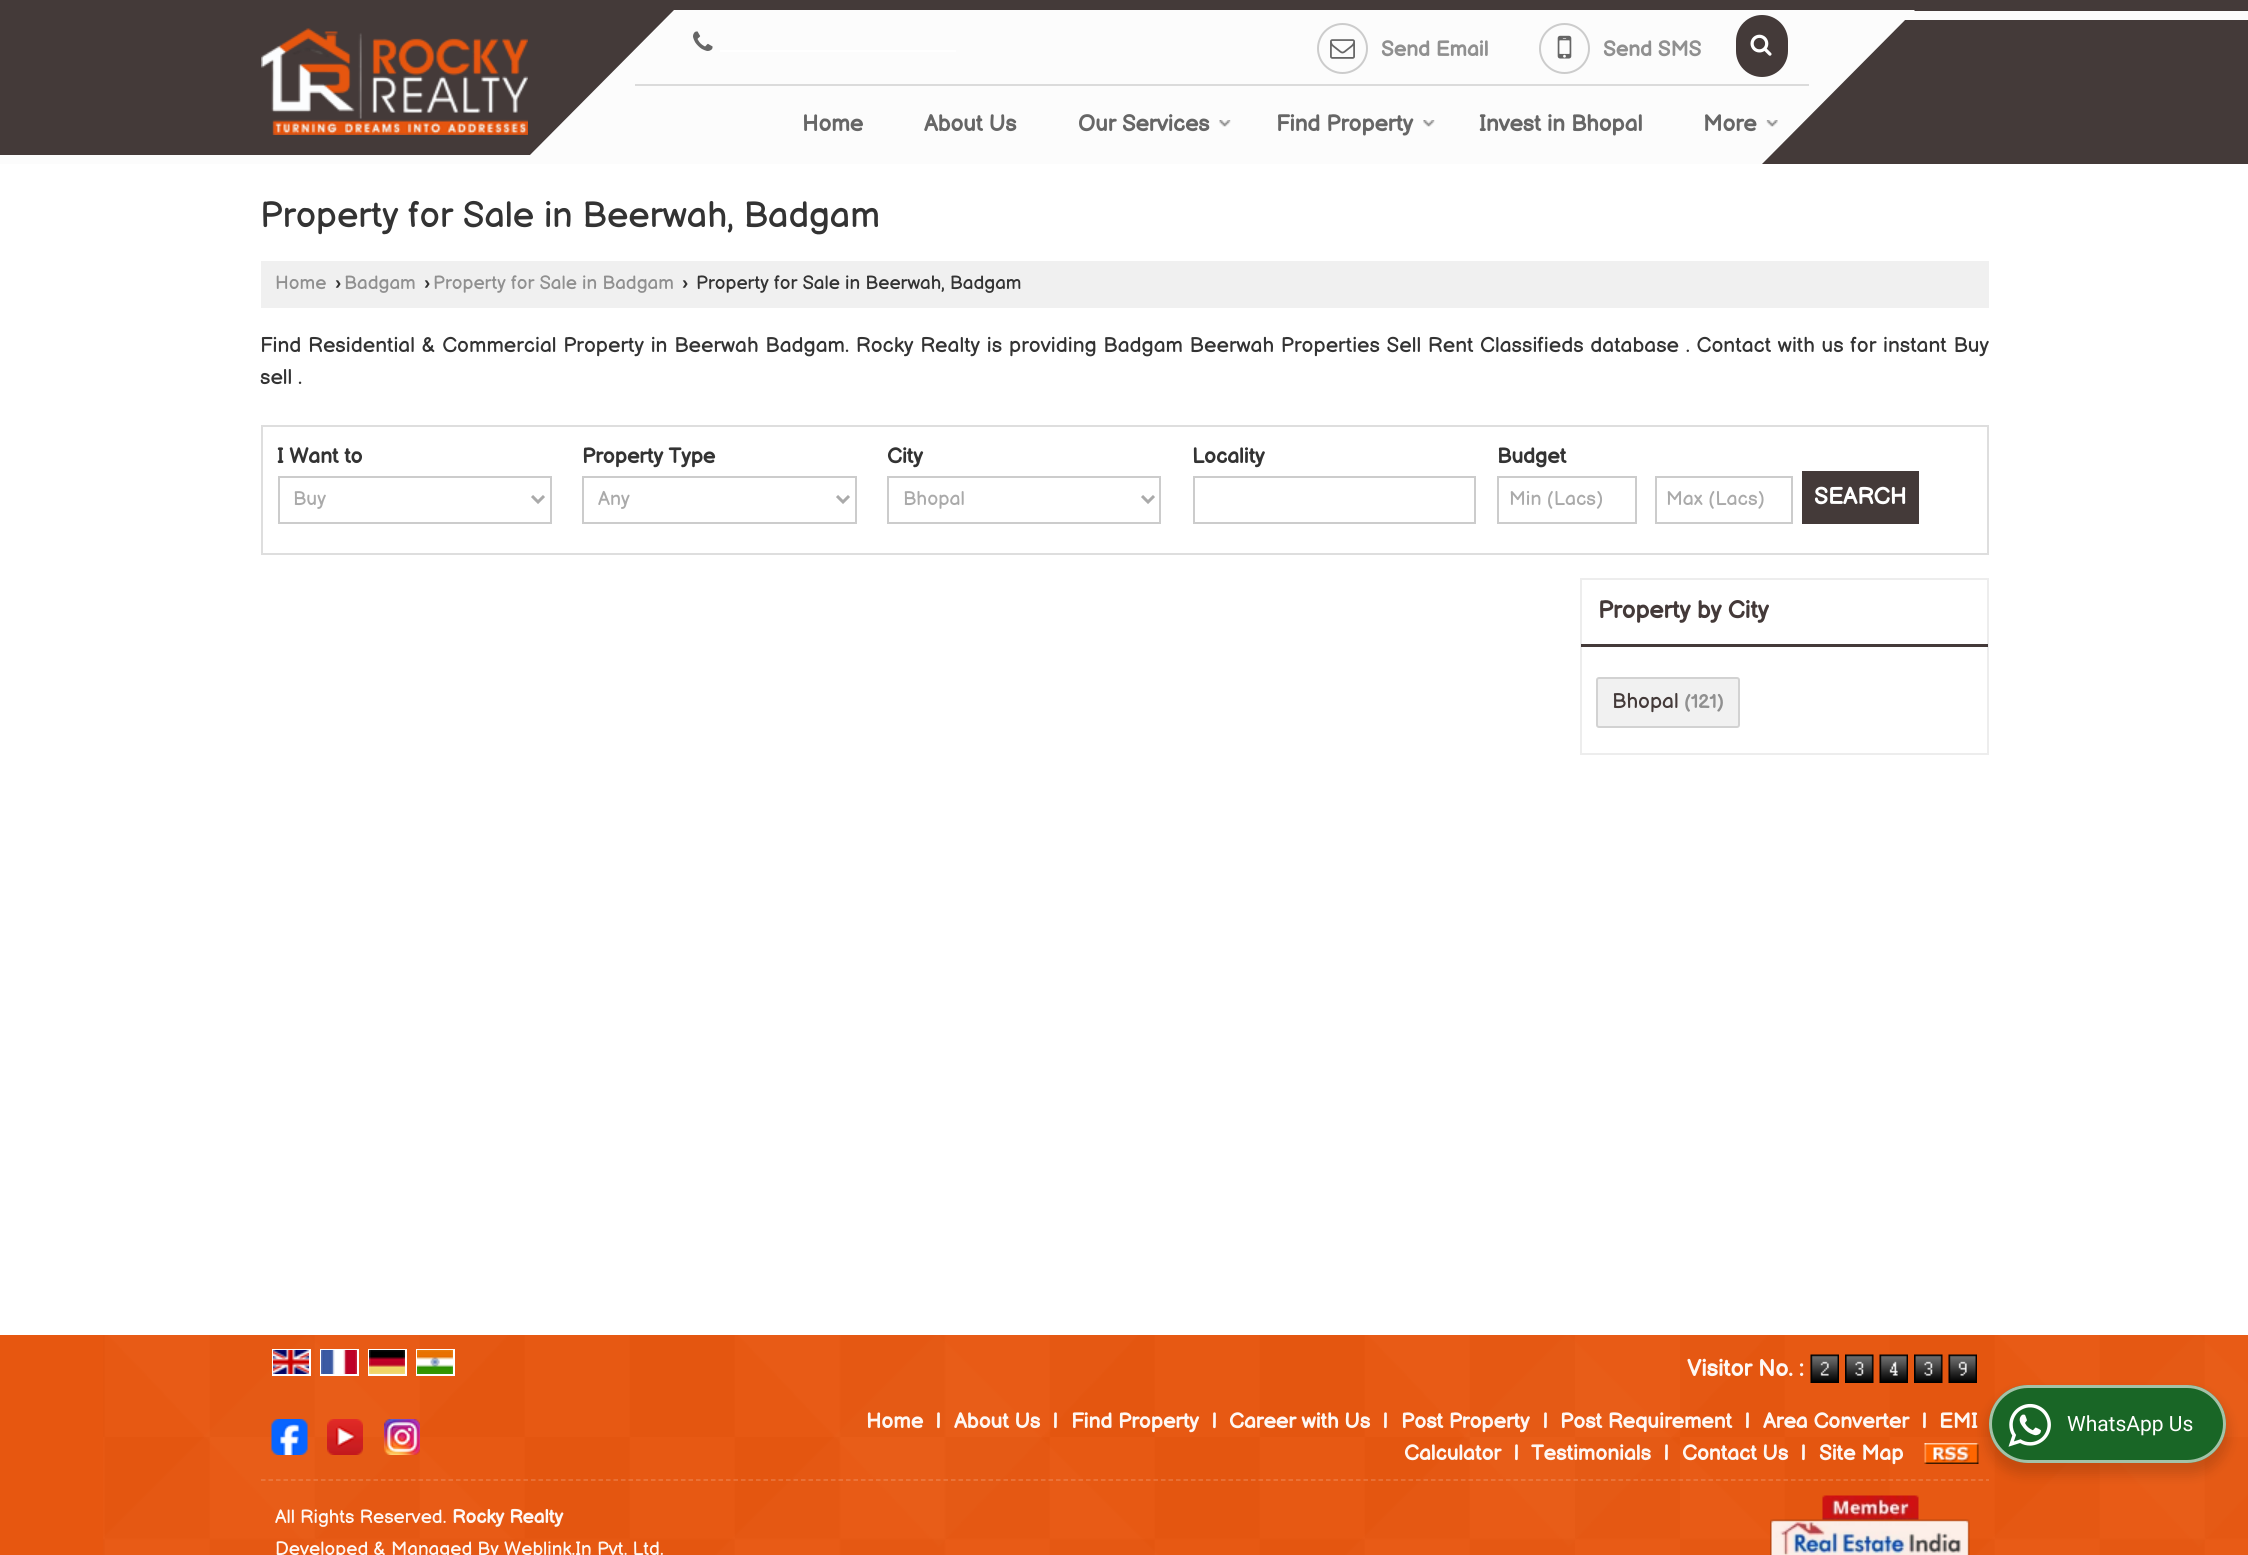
#include <cairo.h>
#include <math.h>
#include <stddef.h>

static cairo_t *c;
static void C(unsigned color){cairo_set_source_rgb(c, (color >> 16) / 255.0, (color >> 8 & 255) / 255.0, (color & 255) / 255.0);}
static void F(const char *family, double size, int italic, int bold){cairo_select_font_face(c, family, italic ? CAIRO_FONT_SLANT_ITALIC : CAIRO_FONT_SLANT_NORMAL,bold ? CAIRO_FONT_WEIGHT_BOLD : CAIRO_FONT_WEIGHT_NORMAL);cairo_set_font_size(c, size);}
static void T(double x, double y, const char *s){cairo_move_to(c, x, y);cairo_show_text(c, s);}
static void L(double x, double y, const char *s, double letter, double word){cairo_move_to(c, x, y);while (*s) {char ch[5] = {0};int n = 0;do ch[n++] = *s++; while ((*s & 0xC0) == 0x80);cairo_show_text(c, ch);cairo_rel_move_to(c, letter + word * (*ch == ' '), 0);}}
static void R(double x, double y, double w, double h){cairo_rectangle(c, x, y, w, h);cairo_fill(c);}
static void Q(double x, double y, double w, double h, double r){cairo_new_sub_path(c);cairo_arc(c, x + w - r, y + h - r, r, 0, M_PI / 2);cairo_arc(c, x + r, y + h - r, r, M_PI / 2, M_PI);cairo_arc(c, x + r, y + r, r, M_PI, 1.5 * M_PI);cairo_arc(c, x + w - r, y + r, r, 1.5 * M_PI, 2 * M_PI);cairo_close_path(c);}
static void S(double x, double y, double w, double h, double r, double blur, double alpha){cairo_push_group_with_content(c, CAIRO_CONTENT_ALPHA);cairo_set_operator(c, CAIRO_OPERATOR_SOURCE);for (int i = 15; i >= -15 && fmin(w, h) + blur * i / 3 > 0; i -= 2) {double e = blur * i / 6;cairo_set_source_rgba(c, 0, 0, 0, alpha * erfc((i - 1) / 8.5) / 2);Q(x - e, y - e, w + 2 * e, h + 2 * e, fmax(0, fmin(r + e + blur * .6, fmin(w, h) / 2 + e)));cairo_fill(c);}cairo_pattern_t *soft = cairo_pop_group(c);cairo_mask(c, soft);cairo_pattern_destroy(soft);}
static void I(const char *path, double x, double y, double w, double h){cairo_surface_t *image = cairo_image_surface_create_from_png(path);cairo_save(c);cairo_set_source_surface(c, image, x, y);cairo_rectangle(c, x, y, w, h);cairo_fill(c);cairo_restore(c);cairo_surface_destroy(image);}
int main(void) {
cairo_surface_t *surface = cairo_image_surface_create(CAIRO_FORMAT_RGB24, 2248, 1555);
c = cairo_create(surface);
cairo_font_options_t *options = cairo_font_options_create();
cairo_font_options_set_hint_metrics(options, CAIRO_HINT_METRICS_OFF);
cairo_font_options_set_hint_style(options, CAIRO_HINT_STYLE_NONE);
cairo_set_font_options(c, options);
cairo_set_miter_limit(c, 4);
C(0xffffff);
cairo_paint(c);
C(0x443a39);
R(0,0,2248,164);
I("1.png",261,28,267,107);
C(0xfcfcfc);
cairo_new_path(c);
cairo_move_to(c,674,10);
cairo_line_to(c,1915,10);
cairo_line_to(c,1762,164);
cairo_line_to(c,521,164);
cairo_close_path(c);
cairo_fill(c);
R(1905,11,343,9);
R(0,155,530,9);
C(0xdbdbdb);
R(635,84,1174,2);
I("2.png",693,31,20,20);
C(0xffffff);
R(720,50,236,2);
cairo_arc(c,1342.5,48.5,24.5,0,2 * M_PI);
C(0xcccccc);
cairo_stroke(c);
I("3.png",1330,39,25,20);
F("Balsamiq Sans",21,0,1);
C(0x909090);
T(1381,56,"Send Email");
cairo_new_path(c);
cairo_arc(c,1564.5,48.5,24.5,0,2 * M_PI);
C(0xcccccc);
cairo_stroke(c);
I("4.png",1557,35,15,24);
C(0x909090);
T(1603,56,"Send SMS");
C(0x443a39);
Q(1736,15,52,62,26);
cairo_fill(c);
I("5.png",1750,34,22,22);
F("Balsamiq Sans",22.5,0,1);
C(0x666666);
T(802,131,"Home");
T(924,131,"About Us");
T(1078,131,"Our Services");
I("6.png",1219,120,12,7);
T(1276,131,"Find Property");
I("7.png",1423,120,12,7);
T(1479,131,"Invest in Bhopal");
T(1703,131,"More");
I("8.png",1766,120,12,7);
F("Balsamiq Sans",36,0,0);
C(0x333333);
T(260,227,"Property for Sale in Beerwah, Badgam");
C(0xf0f0f0);
R(261,261,1728,47);
F("Balsamiq Sans",18.9,0,0);
C(0x909090);
T(275,289,"Home");
F("Liberation Sans",18.9,0,1);
C(0x333333);
T(335,289,"›");
F("Balsamiq Sans",18.9,0,0);
C(0x909090);
T(344,289,"Badgam");
F("Liberation Sans",18.9,0,1);
C(0x333333);
T(424,289,"›");
F("Balsamiq Sans",18.9,0,0);
C(0x909090);
T(433,289,"Property for Sale in Badgam");
F("Liberation Sans",18.9,0,1);
C(0x333333);
T(682,289,"›");
F("Balsamiq Sans",18.9,0,0);
T(696,289,"Property for Sale in Beerwah, Badgam");
F("Balsamiq Sans",21,0,0);
L(260,352,"Find Residential & Commercial Property in Beerwah Badgam. Rocky Realty is",0,1);
L(1009,352,"providing Badgam Beerwah Properties Sell Rent Classifieds database . Contact with us for instant Buy",0,1);
T(260,384,"sell .");
cairo_rectangle(c,262,426,1726,128);
C(0xdedede);
cairo_stroke(c);
F("Balsamiq Sans",21,0,1);
C(0x333333);
T(277,463,"I Want to");
cairo_rectangle(c,279,477,272,46);
C(0xcccccc);
cairo_stroke(c);
cairo_new_path(c);
cairo_move_to(c,532,496);
cairo_line_to(c,538,502);
cairo_line_to(c,544,496);
C(0xaaaaaa);
cairo_set_line_width(c,3);
cairo_stroke(c);
F("Balsamiq Sans",19.5,0,0);
T(293,505,"Buy");
F("Balsamiq Sans",21,0,1);
C(0x333333);
T(582,463,"Property Type");
cairo_rectangle(c,583,477,273,46);
C(0xcccccc);
cairo_set_line_width(c,2);
cairo_stroke(c);
cairo_new_path(c);
cairo_move_to(c,837,496);
cairo_line_to(c,843,502);
cairo_line_to(c,849,496);
C(0xaaaaaa);
cairo_set_line_width(c,3);
cairo_stroke(c);
F("Balsamiq Sans",19.5,0,0);
T(598,505,"Any");
F("Balsamiq Sans",21,0,1);
C(0x333333);
T(887,463,"City");
cairo_rectangle(c,888,477,272,46);
C(0xcccccc);
cairo_set_line_width(c,2);
cairo_stroke(c);
cairo_new_path(c);
cairo_move_to(c,1142,496);
cairo_line_to(c,1148,502);
cairo_line_to(c,1154,496);
C(0xaaaaaa);
cairo_set_line_width(c,3);
cairo_stroke(c);
F("Balsamiq Sans",19.5,0,0);
T(903,505,"Bhopal");
F("Balsamiq Sans",21,0,1);
C(0x333333);
T(1192,463,"Locality");
cairo_rectangle(c,1194,477,281,46);
C(0xcccccc);
cairo_set_line_width(c,2);
cairo_stroke(c);
C(0x333333);
T(1497,463,"Budget");
cairo_rectangle(c,1498,477,138,46);
C(0xcccccc);
cairo_stroke(c);
F("Balsamiq Sans",19.5,0,0);
C(0xaaaaaa);
T(1509,505,"Min (Lacs)");
cairo_rectangle(c,1656,477,136,46);
C(0xcccccc);
cairo_stroke(c);
C(0xaaaaaa);
T(1666,505,"Max (Lacs)");
C(0x443a39);
R(1802,471,117,53);
F("Balsamiq Sans",23,0,1);
C(0xffffff);
T(1814,504,"SEARCH");
cairo_rectangle(c,1581,579,407,175);
C(0xededed);
cairo_stroke(c);
C(0x443a39);
R(1581,644,407,3);
F("Balsamiq Sans",24,0,1);
T(1598,618,"Property by City");
C(0xf1f1f1);
Q(1596,677,144,51,3);
cairo_fill(c);
Q(1597,678,142,49,2);
cairo_set_source_rgba(c,0,0,0,0.13);
cairo_stroke(c);
F("Balsamiq Sans",21,0,0);
C(0x443a39);
T(1612,708,"Bhopal");
F("Balsamiq Sans",18.9,0,1);
C(0x909090);
T(1684,708,"(121)");
C(0xe75710);
R(0,1335,2248,220);
I("9.png",103,1335,2145,220);
cairo_rectangle(c,273,1350,37,25);
C(0xffffff);
cairo_stroke(c);
cairo_rectangle(c,321,1350,37,25);
cairo_stroke(c);
cairo_rectangle(c,369,1350,37,25);
cairo_stroke(c);
cairo_rectangle(c,417,1350,37,25);
cairo_stroke(c);
I("10.png",273,1350,36,24);
I("11.png",321,1350,36,24);
I("12.png",369,1350,36,24);
I("13.png",417,1350,36,24);
F("Balsamiq Sans",23,0,1);
C(0xfef7f3);
T(1687,1376,"Visitor No. :");
I("14.png",1810,1354,29,29);
I("15.png",1845,1354,29,29);
I("16.png",1879,1354,29,29);
I("17.png",1914,1354,29,29);
I("18.png",1948,1354,29,29);
I("19.png",271,1419,37,36);
I("20.png",327,1419,36,36);
I("21.png",384,1419,36,36);
F("Balsamiq Sans",21,0,1);
T(866,1428,"Home");
T(936,1428,"|");
T(954,1428,"About Us");
T(1053,1428,"|");
T(1071,1428,"Find Property");
T(1212,1428,"|");
T(1229,1428,"Career with Us");
T(1383,1428,"|");
T(1401,1428,"Post Property");
T(1543,1428,"|");
T(1560,1428,"Post Requirement");
T(1745,1428,"|");
T(1763,1428,"Area Converter");
T(1922,1428,"|");
T(1939,1428,"EMI");
T(1404,1460,"Calculator");
T(1514,1460,"|");
T(1531,1460,"Testimonials");
T(1664,1460,"|");
T(1682,1460,"Contact Us");
T(1801,1460,"|");
T(1819,1460,"Site Map");
I("22.png",1924,1443,55,21);
cairo_new_path(c);
cairo_move_to(c,261,1480);
cairo_line_to(c,1989,1480);
cairo_set_source_rgba(c,1,1,1,0.2);
cairo_set_line_width(c,1.5);
cairo_set_dash(c,(double[]){4.5,3},2,0);
cairo_stroke(c);
F("Balsamiq Sans",18.9,0,0);
C(0xfef7f3);
T(275,1523,"All Rights Reserved.");
F("Balsamiq Sans",18.9,0,1);
T(452,1523,"Rocky Realty");
F("Balsamiq Sans",18.9,0,0);
T(275,1555,"Developed & Managed By Weblink.In Pvt. Ltd.");
I("23.png",1770,1495,200,60);
C(0x000000);
S(1986,1391,243,84,42,6,.14);
C(0x196626);
Q(1989,1385,237,78,39);
cairo_fill(c);
Q(1990.5,1386.5,234,75,37.5);
cairo_set_source_rgba(c,1,1,1,0.6);
cairo_set_line_width(c,3);
cairo_set_dash(c,NULL,0,0);
cairo_stroke(c);
I("24.png",2008,1403,43,44);
F("Roboto",21,0,0);
C(0xffffff);
T(2067,1431,"WhatsApp Us");
cairo_surface_write_to_png(surface, "o.png");
cairo_font_options_destroy(options);
cairo_destroy(c);
cairo_surface_destroy(surface);
return 0;
}
